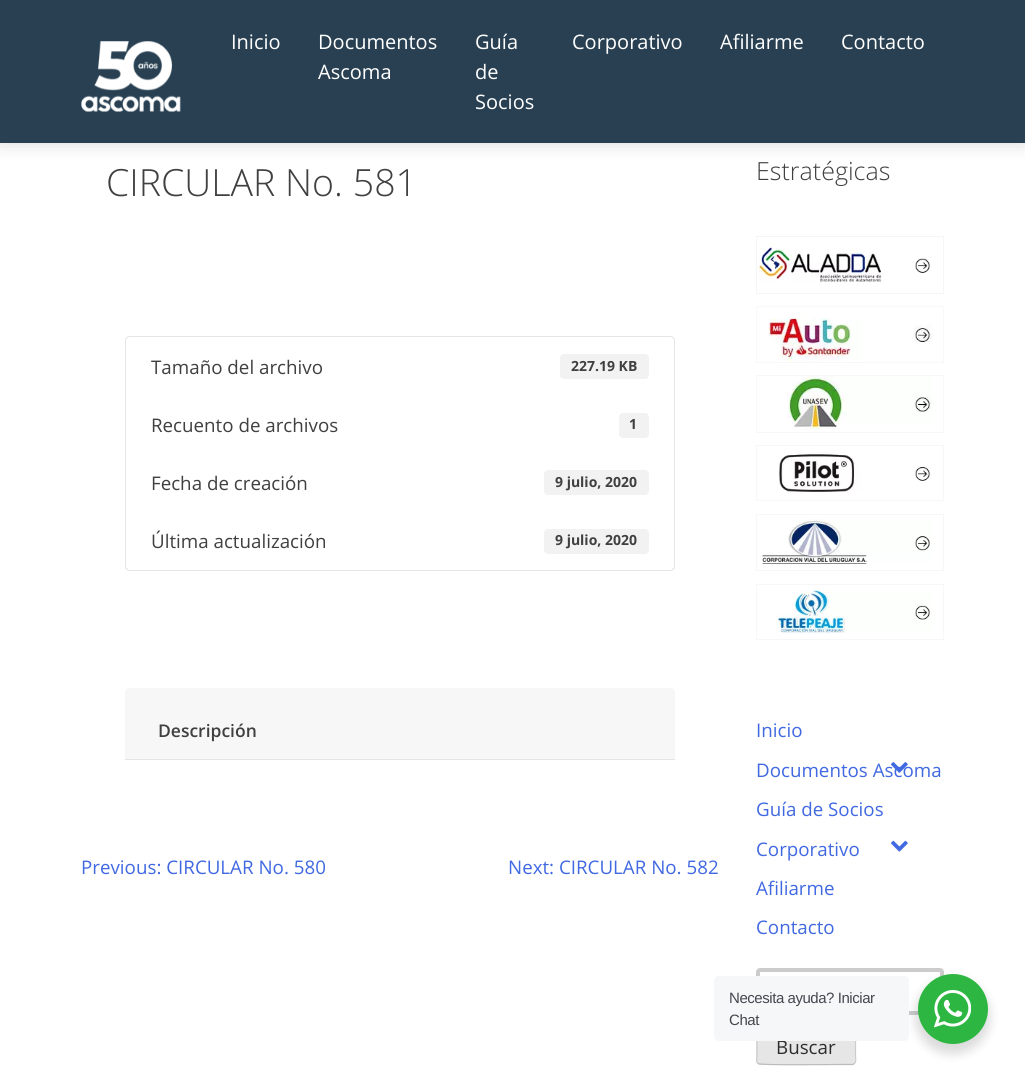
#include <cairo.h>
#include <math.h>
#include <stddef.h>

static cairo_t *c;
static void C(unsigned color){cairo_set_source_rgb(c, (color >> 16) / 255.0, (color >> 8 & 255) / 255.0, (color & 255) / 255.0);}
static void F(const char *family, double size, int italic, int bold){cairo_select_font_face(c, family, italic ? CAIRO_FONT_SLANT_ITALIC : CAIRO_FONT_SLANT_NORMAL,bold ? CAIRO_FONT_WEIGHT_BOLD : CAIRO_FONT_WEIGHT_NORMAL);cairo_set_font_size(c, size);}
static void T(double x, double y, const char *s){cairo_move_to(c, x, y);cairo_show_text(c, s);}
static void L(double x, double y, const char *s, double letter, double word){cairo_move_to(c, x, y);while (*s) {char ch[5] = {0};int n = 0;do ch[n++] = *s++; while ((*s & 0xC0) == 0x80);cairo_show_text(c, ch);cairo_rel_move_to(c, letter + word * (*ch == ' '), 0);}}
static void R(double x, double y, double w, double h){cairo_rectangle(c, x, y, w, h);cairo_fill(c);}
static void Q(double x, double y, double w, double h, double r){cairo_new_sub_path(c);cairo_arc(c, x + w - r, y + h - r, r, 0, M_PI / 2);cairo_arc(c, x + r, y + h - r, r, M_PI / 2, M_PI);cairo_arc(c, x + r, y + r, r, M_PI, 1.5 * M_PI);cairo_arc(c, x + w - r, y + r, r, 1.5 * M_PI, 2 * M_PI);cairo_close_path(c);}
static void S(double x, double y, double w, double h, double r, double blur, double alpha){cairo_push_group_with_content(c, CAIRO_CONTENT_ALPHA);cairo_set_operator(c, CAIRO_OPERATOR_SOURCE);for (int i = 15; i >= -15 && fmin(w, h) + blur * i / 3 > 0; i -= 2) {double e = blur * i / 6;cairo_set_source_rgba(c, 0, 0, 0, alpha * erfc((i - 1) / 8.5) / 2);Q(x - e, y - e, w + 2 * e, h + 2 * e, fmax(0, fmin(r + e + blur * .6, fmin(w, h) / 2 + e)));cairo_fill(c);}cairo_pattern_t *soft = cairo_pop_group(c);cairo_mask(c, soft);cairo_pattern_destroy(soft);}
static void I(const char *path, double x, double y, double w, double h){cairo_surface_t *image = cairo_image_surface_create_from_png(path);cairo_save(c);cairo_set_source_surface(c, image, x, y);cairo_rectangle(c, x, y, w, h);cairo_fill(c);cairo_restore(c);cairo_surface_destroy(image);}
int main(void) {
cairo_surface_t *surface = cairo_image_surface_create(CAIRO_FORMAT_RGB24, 1025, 1081);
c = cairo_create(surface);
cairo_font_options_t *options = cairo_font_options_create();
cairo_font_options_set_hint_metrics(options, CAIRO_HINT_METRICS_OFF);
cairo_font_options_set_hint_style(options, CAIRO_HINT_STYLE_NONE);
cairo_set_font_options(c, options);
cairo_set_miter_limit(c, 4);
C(0xffffff);
cairo_paint(c);
C(0x000000);
S(0,0,1025,143,0,10,.15);
C(0x284052);
R(0,0,1025,143);
I("1.png",81,41,100,71);
F("Open Sans",20,0,0);
C(0xffffff);
T(231,49,"Inicio");
T(318,49,"Documentos");
T(318,79,"Ascoma");
T(475,49,"Guía");
T(475,79,"de");
T(475,109,"Socios");
T(572,49,"Corporativo");
T(720,49,"Afiliarme");
T(841,49,"Contacto");
F("Open Sans Light",37.5,0,0);
C(0x404040);
T(106,196,"CIRCULAR No. 581");
cairo_new_path(c);
cairo_move_to(c,130,336.5);
cairo_line_to(c,670,336.5);
cairo_curve_to(c,672.5,336.5,674.5,338.5,674.5,341);
cairo_line_to(c,674.5,397.5);
cairo_line_to(c,125.5,397.5);
cairo_line_to(c,125.5,341);
cairo_curve_to(c,125.5,338.5,127.5,336.5,130,336.5);
cairo_close_path(c);
C(0xe5e5e5);
cairo_set_line_width(c,1);
cairo_stroke(c);
F("Open Sans",18.75,0,0);
C(0x404040);
T(151,374,"Tamaño del archivo");
C(0xf2f2f2);
Q(560,354,89,25,4);
cairo_fill(c);
F("Open Sans",14,0,1);
C(0x404040);
T(571,371,"227.19 KB");
C(0xffffff);
R(126,397,548,1);
C(0xe5e5e5);
R(674,396,1,118);
R(125,396,1,118);
F("Open Sans",18.75,0,0);
C(0x404040);
T(151,432,"Recuento de archivos");
C(0xf2f2f2);
Q(619,413,30,25,4);
cairo_fill(c);
F("Open Sans",14,0,1);
C(0x404040);
T(629,429,"1");
F("Open Sans",18.75,0,0);
T(151,490,"Fecha de creación");
C(0xf2f2f2);
Q(544,470,105,25,4);
cairo_fill(c);
F("Open Sans",14,0,1);
C(0x404040);
T(555,487,"9 julio, 2020");
C(0xe5e5e5);
cairo_set_fill_rule(c,CAIRO_FILL_RULE_EVEN_ODD);
cairo_new_path(c);
cairo_move_to(c,125,512);
cairo_line_to(c,675,512);
cairo_line_to(c,675,566);
cairo_curve_to(c,675,569,673,571,670,571);
cairo_line_to(c,130,571);
cairo_curve_to(c,127,571,125,569,125,566);
cairo_close_path(c);
cairo_move_to(c,126,512);
cairo_line_to(c,674,512);
cairo_line_to(c,674,566);
cairo_curve_to(c,674,568,672,570,670,570);
cairo_line_to(c,130,570);
cairo_curve_to(c,128,570,126,568,126,566);
cairo_close_path(c);
cairo_fill(c);
F("Open Sans",18.75,0,0);
C(0x404040);
T(151,548,"Última actualización");
C(0xf2f2f2);
Q(544,529,105,25,4);
cairo_fill(c);
F("Open Sans",14,0,1);
C(0x404040);
T(555,545,"9 julio, 2020");
C(0xf7f7f7);
cairo_new_path(c);
cairo_move_to(c,129,688);
cairo_line_to(c,671,688);
cairo_curve_to(c,673,688,675,690,675,692);
cairo_line_to(c,675,760);
cairo_line_to(c,125,760);
cairo_line_to(c,125,692);
cairo_curve_to(c,125,690,127,688,129,688);
cairo_close_path(c);
cairo_fill(c);
C(0xe5e5e5);
R(125,759,550,1);
F("Open Sans SemiBold",17.5,0,0);
C(0x404040);
T(158,737,"Descripción");
F("Open Sans",18.75,0,0);
C(0x4169e1);
T(81,874,"Previous: CIRCULAR No. 580");
T(508,874,"Next: CIRCULAR No. 582");
F("Open Sans Light",25,0,0);
C(0x404040);
T(756,180,"Estratégicas");
cairo_rectangle(c,756.5,236.5,187,57);
C(0xf5f5f5);
cairo_stroke(c);
I("2.png",757,243,175,39);
cairo_rectangle(c,756.5,306.5,187,56);
cairo_set_source_rgba(c,0,0,0,0.03);
cairo_stroke(c);
I("3.png",768,317,164,45);
cairo_rectangle(c,756.5,375.5,187,57);
cairo_stroke(c);
I("4.png",787,376,145,54);
cairo_rectangle(c,756.5,445.5,187,55);
C(0xf7f7f7);
cairo_stroke(c);
I("5.png",778,452,154,40);
cairo_rectangle(c,756.5,514.5,187,56);
cairo_stroke(c);
I("6.png",761,519,171,45);
cairo_rectangle(c,756.5,584.5,187,55);
cairo_stroke(c);
I("7.png",775,590,157,44);
F("Open Sans",18.75,0,0);
C(0x4169e1);
T(756,737,"Inicio");
T(756,777,"Documentos Ascoma");
I("8.png",891,762,17,11);
T(756,816,"Guía de Socios");
T(756,856,"Corporativo");
I("9.png",891,840,17,12);
T(756,895,"Afiliarme");
T(756,934,"Contacto");
Q(758,970,184,43,2);
C(0xcccccc);
cairo_set_line_width(c,4);
cairo_stroke(c);
C(0xe6e6e6);
Q(756,1025,100,40,4);
cairo_fill(c);
cairo_new_path(c);
cairo_move_to(c,854.5,1063.5);
cairo_line_to(c,852.5,1064.5);
cairo_line_to(c,837,1064.5);
cairo_curve_to(c,828.5,1064.5,760,1065.5,758,1063.5);
C(0xbbbbbb);
cairo_set_line_width(c,1.2);
cairo_stroke(c);
cairo_new_path(c);
cairo_move_to(c,758,1063.5);
cairo_curve_to(c,756,1061.5,757,1057.5,757,1056);
cairo_line_to(c,757,1045);
cairo_curve_to(c,757,1022,752.5,1025.5,775.5,1025.5);
cairo_line_to(c,837,1025.5);
cairo_curve_to(c,860,1025.5,855.5,1022,855.5,1045);
cairo_line_to(c,855.5,1056);
cairo_curve_to(c,855.5,1057.5,856.5,1061.5,854.5,1063.5);
C(0xcccccc);
cairo_stroke(c);
C(0x2e2e2e);
T(776,1054,"Buscar");
C(0x000000);
S(915,979,75,75,37.5,5,.14);
C(0xf5f7f9);
Q(714,976,195,65,5);
cairo_fill(c);
F("Liberation Sans",15,0,0);
C(0x43474e);
L(729,1003,"Necesita ayuda? Iniciar",-.45,0);
L(729,1025,"Chat",-.45,0);
C(0x2db742);
cairo_new_path(c);
cairo_arc(c,953,1009,35,0,2 * M_PI);
cairo_fill(c);
I("10.png",934,990,37,38);
cairo_surface_write_to_png(surface, "o.png");
cairo_font_options_destroy(options);
cairo_destroy(c);
cairo_surface_destroy(surface);
return 0;
}
